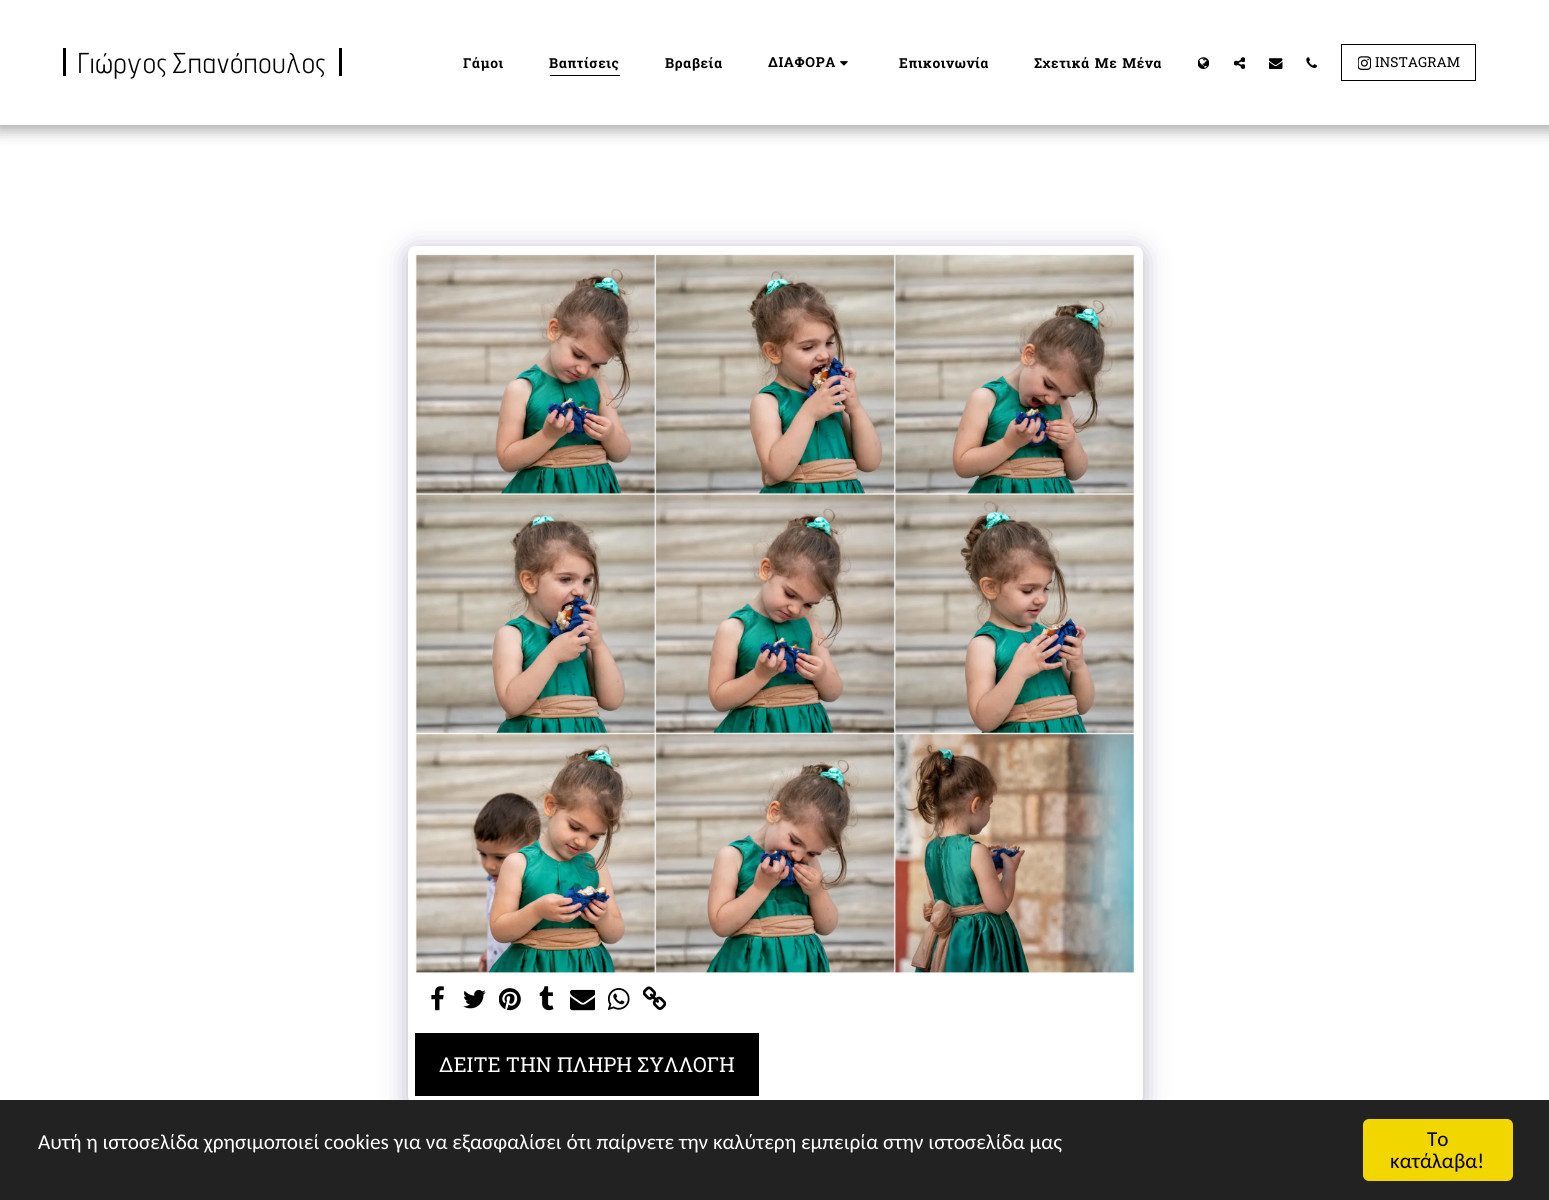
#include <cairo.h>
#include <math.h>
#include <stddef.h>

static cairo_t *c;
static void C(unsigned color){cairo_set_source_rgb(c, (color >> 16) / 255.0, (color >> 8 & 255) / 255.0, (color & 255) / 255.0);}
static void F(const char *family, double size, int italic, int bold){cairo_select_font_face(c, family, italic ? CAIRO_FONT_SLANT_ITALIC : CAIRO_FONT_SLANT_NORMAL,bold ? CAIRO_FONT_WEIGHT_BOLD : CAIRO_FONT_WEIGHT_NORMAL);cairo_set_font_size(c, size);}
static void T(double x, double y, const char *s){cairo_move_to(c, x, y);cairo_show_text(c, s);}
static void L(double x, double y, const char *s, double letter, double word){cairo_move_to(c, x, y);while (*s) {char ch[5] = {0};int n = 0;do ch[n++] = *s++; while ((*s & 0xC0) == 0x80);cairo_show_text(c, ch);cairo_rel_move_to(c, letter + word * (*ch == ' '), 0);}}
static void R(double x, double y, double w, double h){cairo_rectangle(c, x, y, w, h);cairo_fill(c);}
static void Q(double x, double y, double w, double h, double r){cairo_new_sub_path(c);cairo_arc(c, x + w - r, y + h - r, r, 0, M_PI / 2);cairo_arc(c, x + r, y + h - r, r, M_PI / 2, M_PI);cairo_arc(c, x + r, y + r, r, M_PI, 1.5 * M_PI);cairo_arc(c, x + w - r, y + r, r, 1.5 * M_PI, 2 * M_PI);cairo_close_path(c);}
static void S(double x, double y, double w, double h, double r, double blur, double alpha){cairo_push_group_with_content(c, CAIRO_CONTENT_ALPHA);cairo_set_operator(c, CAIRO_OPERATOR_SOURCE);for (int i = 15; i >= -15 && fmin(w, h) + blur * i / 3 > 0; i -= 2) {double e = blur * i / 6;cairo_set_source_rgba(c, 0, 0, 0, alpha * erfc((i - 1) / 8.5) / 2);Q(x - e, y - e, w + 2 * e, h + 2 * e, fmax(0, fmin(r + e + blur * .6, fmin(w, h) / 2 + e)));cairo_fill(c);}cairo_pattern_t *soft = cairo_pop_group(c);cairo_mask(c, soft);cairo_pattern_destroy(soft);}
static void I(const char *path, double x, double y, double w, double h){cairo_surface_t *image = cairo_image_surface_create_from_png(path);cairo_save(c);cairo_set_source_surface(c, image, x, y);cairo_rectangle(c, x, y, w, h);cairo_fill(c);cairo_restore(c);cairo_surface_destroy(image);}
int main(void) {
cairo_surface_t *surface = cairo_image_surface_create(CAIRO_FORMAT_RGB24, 1549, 1200);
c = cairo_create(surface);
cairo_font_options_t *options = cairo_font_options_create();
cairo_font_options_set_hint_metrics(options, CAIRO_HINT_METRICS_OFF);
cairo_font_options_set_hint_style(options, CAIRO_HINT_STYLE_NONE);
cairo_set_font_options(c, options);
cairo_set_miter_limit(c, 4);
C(0xffffff);
cairo_paint(c);
C(0x000000);
S(-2,0,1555,130,0,7.5,.35);
C(0xffffff);
R(0,0,1549,125);
C(0x000000);
R(339,48,3,28);
R(63,48,3,28);
F("Advent Pro",28.75,0,0);
L(78,73,"Γιώργος",1.25,0);
L(172,73,"Σπανόπουλος",1.25,0);
F("Roboto Slab",13.75,0,1);
L(463,68,"Γάμοι",.6,0);
L(549,68,"Βαπτίσεις",.6,0);
R(550,75,70,1);
L(665,68,"Βραβεία",.6,0);
L(768,67,"ΔΙΑΦΟΡΑ",.6,0);
I("1.png",840,61,8,5);
L(899,68,"Επικοινωνία",.6,0);
L(1034,68,"Σχετικά Με Μένα",.6,1);
I("2.png",1198,57,11,12);
I("3.png",1234,57,11,12);
I("4.png",1269,58,14,11);
I("5.png",1306,57,11,11);
cairo_rectangle(c,1341.5,44.5,134,36);
cairo_set_line_width(c,1);
cairo_stroke(c);
I("6.png",1358,56,13,14);
F("Roboto Slab",13.75,0,0);
T(1375,67,"INSTAGRAM");
C(0x4d3f7a);
S(408,250,735,858,8,12.5,.4);
C(0xffffff);
Q(408,246,735,858,8);
cairo_fill(c);
I("7.png",415,254,720,720);
I("8.png",431,986,13,25);
I("9.png",463,989,23,20);
I("10.png",499,988,22,23);
I("11.png",539,986,15,25);
I("12.png",570,989,25,22);
I("13.png",608,988,22,22);
I("14.png",643,986,23,24);
C(0x000000);
R(415,1033,344,63);
F("Roboto Slab",20.6,0,0);
C(0xffffff);
T(439,1072,"ΔΕΙΤΕ ΤΗΝ ΠΛΗΡΗ ΣΥΛΛΟΓΗ");
C(0x222222);
R(0,1100,1549,100);
F("Carlito",21.25,0,0);
C(0xffffff);
T(38,1149,"Αυτή η ιστοσελίδα χρησιμοποιεί cookies για να εξασφαλίσει ότι παίρνετε την καλύτερη εμπειρία στην ιστοσελίδα μας");
C(0xf1d600);
Q(1363,1119,150,62,6);
cairo_fill(c);
C(0x000000);
T(1427,1146,"Το");
T(1390,1168,"κατάλαβα!");
cairo_surface_write_to_png(surface, "o.png");
cairo_font_options_destroy(options);
cairo_destroy(c);
cairo_surface_destroy(surface);
return 0;
}
